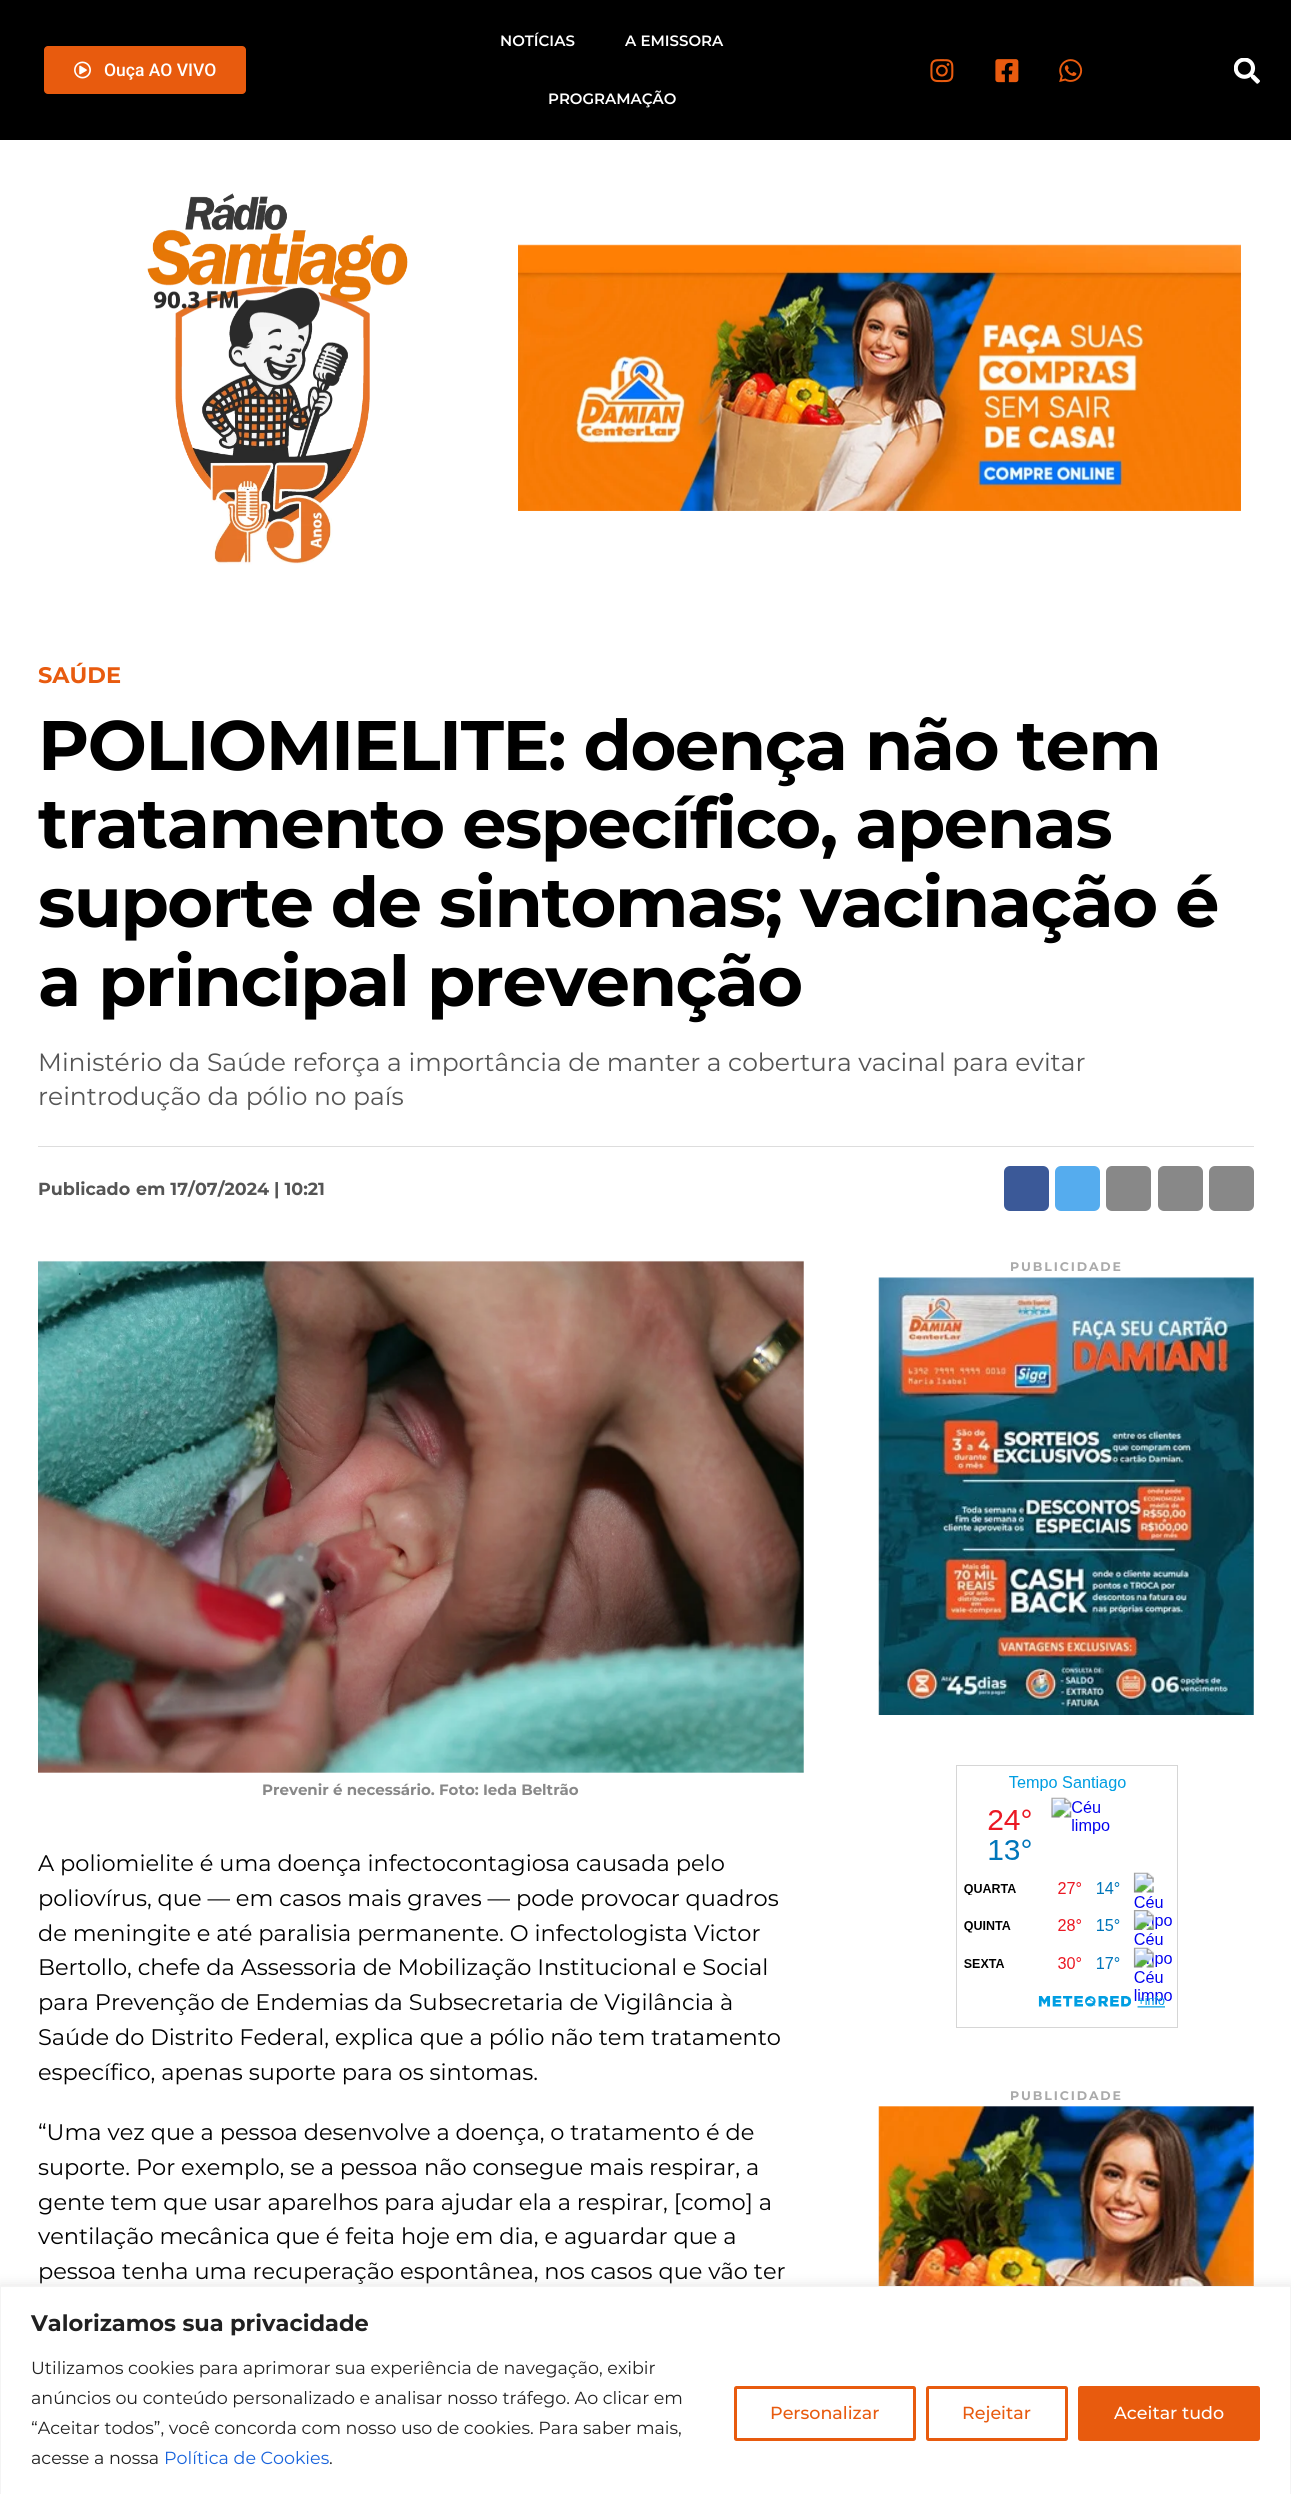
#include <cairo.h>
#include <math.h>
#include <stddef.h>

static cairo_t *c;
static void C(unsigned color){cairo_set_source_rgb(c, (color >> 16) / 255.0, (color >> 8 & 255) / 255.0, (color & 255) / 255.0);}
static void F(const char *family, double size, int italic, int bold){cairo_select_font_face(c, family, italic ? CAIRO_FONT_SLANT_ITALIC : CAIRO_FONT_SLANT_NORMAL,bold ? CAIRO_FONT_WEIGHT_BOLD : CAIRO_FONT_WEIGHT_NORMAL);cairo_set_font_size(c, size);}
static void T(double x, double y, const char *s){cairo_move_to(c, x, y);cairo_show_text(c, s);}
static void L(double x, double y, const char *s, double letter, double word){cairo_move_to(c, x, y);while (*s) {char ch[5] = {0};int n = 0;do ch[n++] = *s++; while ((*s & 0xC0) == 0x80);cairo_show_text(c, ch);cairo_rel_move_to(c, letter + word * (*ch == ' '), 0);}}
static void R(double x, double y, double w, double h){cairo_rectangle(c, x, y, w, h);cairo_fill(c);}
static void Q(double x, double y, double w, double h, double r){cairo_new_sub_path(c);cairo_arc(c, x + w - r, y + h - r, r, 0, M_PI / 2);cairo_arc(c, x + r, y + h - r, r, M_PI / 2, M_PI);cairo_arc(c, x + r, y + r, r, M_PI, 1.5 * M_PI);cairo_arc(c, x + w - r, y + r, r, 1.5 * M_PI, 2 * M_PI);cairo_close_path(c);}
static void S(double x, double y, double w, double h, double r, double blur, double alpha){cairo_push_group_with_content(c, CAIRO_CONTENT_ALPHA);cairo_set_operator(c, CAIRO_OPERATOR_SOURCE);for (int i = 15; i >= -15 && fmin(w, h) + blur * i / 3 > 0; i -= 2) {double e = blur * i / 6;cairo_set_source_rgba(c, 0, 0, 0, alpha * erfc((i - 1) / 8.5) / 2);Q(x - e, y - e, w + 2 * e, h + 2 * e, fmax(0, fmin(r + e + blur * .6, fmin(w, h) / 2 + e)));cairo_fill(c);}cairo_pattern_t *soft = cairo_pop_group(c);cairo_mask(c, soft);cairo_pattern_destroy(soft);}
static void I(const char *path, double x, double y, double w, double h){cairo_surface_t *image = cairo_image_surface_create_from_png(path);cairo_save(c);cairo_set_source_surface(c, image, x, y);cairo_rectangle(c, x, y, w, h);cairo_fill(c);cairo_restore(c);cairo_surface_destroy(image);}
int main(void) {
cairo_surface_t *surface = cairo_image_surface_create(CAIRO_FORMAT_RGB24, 1291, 2494);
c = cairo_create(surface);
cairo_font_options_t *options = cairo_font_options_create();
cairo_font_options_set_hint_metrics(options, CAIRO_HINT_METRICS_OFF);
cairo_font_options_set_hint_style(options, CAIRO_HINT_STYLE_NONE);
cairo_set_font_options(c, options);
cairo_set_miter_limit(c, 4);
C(0xffffff);
cairo_paint(c);
C(0x000000);
R(0,0,1291,140);
C(0xe85b0e);
Q(44,46,202,48,4);
cairo_fill(c);
I("1.png",74,61,17,18);
F("Roboto Medium",17.5,0,0);
C(0xffffff);
T(104,76,"Ouça AO VIVO");
F("Montserrat SemiBold",15,0,0);
T(500,46,"NOTÍCIAS");
T(625,46,"A EMISSORA");
T(548,104,"PROGRAMAÇÃO");
I("2.png",930,59,24,24);
I("3.png",995,59,24,24);
I("4.png",1059,59,24,23);
I("5.png",1234,58,26,26);
I("6.png",147,193,261,372);
I("7.png",518,244,723,267);
F("Montserrat",22.5,0,1);
C(0xe85b0f);
T(38,683,"SAÚDE");
F("Montserrat",70,0,1);
C(0x000000);
L(38,770,"POLIOMIELITE: doença não tem",-1.4,0);
L(38,848,"tratamento específico, apenas",-1.4,0);
L(38,927,"suporte de sintomas; vacinação é",-1.4,0);
L(38,1006,"a principal prevenção",-1.4,0);
F("Montserrat",25,0,0);
C(0x555555);
T(38,1071,"Ministério da Saúde reforça a importância de manter a cobertura vacinal para evitar");
T(38,1105,"reintrodução da pólio no país");
C(0xdddddd);
R(38,1146,1216,1);
F("Montserrat",17.5,0,1);
C(0x555555);
T(38,1195,"Publicado");
T(136,1195,"em 17/07/2024 | 10:21");
C(0x3b5998);
Q(1004,1166,45,45,6);
cairo_fill(c);
C(0x55acee);
Q(1055,1166,45,45,6);
cairo_fill(c);
C(0x888888);
Q(1106,1166,45,45,6);
cairo_fill(c);
Q(1158,1166,45,45,6);
cairo_fill(c);
Q(1209,1166,45,45,6);
cairo_fill(c);
I("8.png",38,1260,766,513);
F("Montserrat",15,0,1);
T(262,1795,"Prevenir é necessário. Foto: Ieda Beltrão");
F("Montserrat",22.5,0,0);
C(0x000000);
T(38,1871,"A poliomielite é uma doença infectocontagiosa causada pelo");
T(38,1906,"poliovírus, que — em casos mais graves — pode provocar quadros");
T(38,1941,"de meningite e até paralisia permanente. O infectologista Victor");
T(38,1975,"Bertollo, chefe da Assessoria de Mobilização Institucional e Social");
T(38,2010,"para Prevenção de Endemias da Subsecretaria de Vigilância à");
T(38,2045,"Saúde do Distrito Federal, explica que a pólio não tem tratamento");
T(38,2080,"específico, apenas suporte para os sintomas.");
T(38,2140,"“Uma vez que a pessoa desenvolve a doença, o tratamento é de");
T(38,2175,"suporte. Por exemplo, se a pessoa não consegue mais respirar, a");
T(38,2210,"gente tem que usar aparelhos para ajudar ela a respirar, [como] a");
T(38,2244,"ventilação mecânica que é feita hoje em dia, e aguardar que a");
T(38,2279,"pessoa tenha uma recuperação espontânea, nos casos que vão ter");
F("Montserrat",12.5,0,1);
C(0xaaaaaa);
L(1010,1271,"PUBLICIDADE",1.9,0);
I("9.png",878,1277,376,438);
cairo_rectangle(c,956.5,1765.5,221,262);
C(0xd6d6d6);
cairo_set_line_width(c,1);
cairo_stroke(c);
I("10.png",964,1776,208,232);
C(0xaaaaaa);
L(1010,2100,"PUBLICIDADE",1.9,0);
I("11.png",878,2106,376,180);
C(0xacabab);
S(0,2285,1291,209,0,6,.3);
C(0xffffff);
cairo_rectangle(c,.5,2286.5,1290,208);
cairo_fill_preserve(c);
C(0xf4f4f4);
cairo_stroke(c);
F("Montserrat",22.5,0,1);
C(0x212121);
T(31,2331,"Valorizamos sua privacidade");
F("Montserrat",17.5,0,0);
T(31,2374,"Utilizamos cookies para aprimorar sua experiência de navegação, exibir");
T(31,2404,"anúncios ou conteúdo personalizado e analisar nosso tráfego. Ao clicar em");
T(31,2434,"“Aceitar todos”, você concorda com nosso uso de cookies. Para saber mais,");
T(31,2464,"acesse a nossa");
C(0x1863dc);
T(164,2464,"Política de Cookies");
C(0x212121);
T(329,2464,".");
Q(735.5,2387.5,179,52,1);
C(0xe85b0e);
cairo_set_line_width(c,3);
cairo_stroke(c);
F("Montserrat Medium",17.5,0,0);
C(0xe85b0f);
T(770,2419,"Personalizar");
Q(927.5,2387.5,139,52,1);
C(0xe85b0e);
cairo_stroke(c);
C(0xe85b0f);
T(962,2419,"Rejeitar");
C(0xe85b0e);
Q(1079.5,2387.5,179,52,1);
cairo_fill_preserve(c);
cairo_stroke(c);
C(0xffffff);
T(1114,2419,"Aceitar tudo");
cairo_surface_write_to_png(surface, "o.png");
cairo_font_options_destroy(options);
cairo_destroy(c);
cairo_surface_destroy(surface);
return 0;
}
